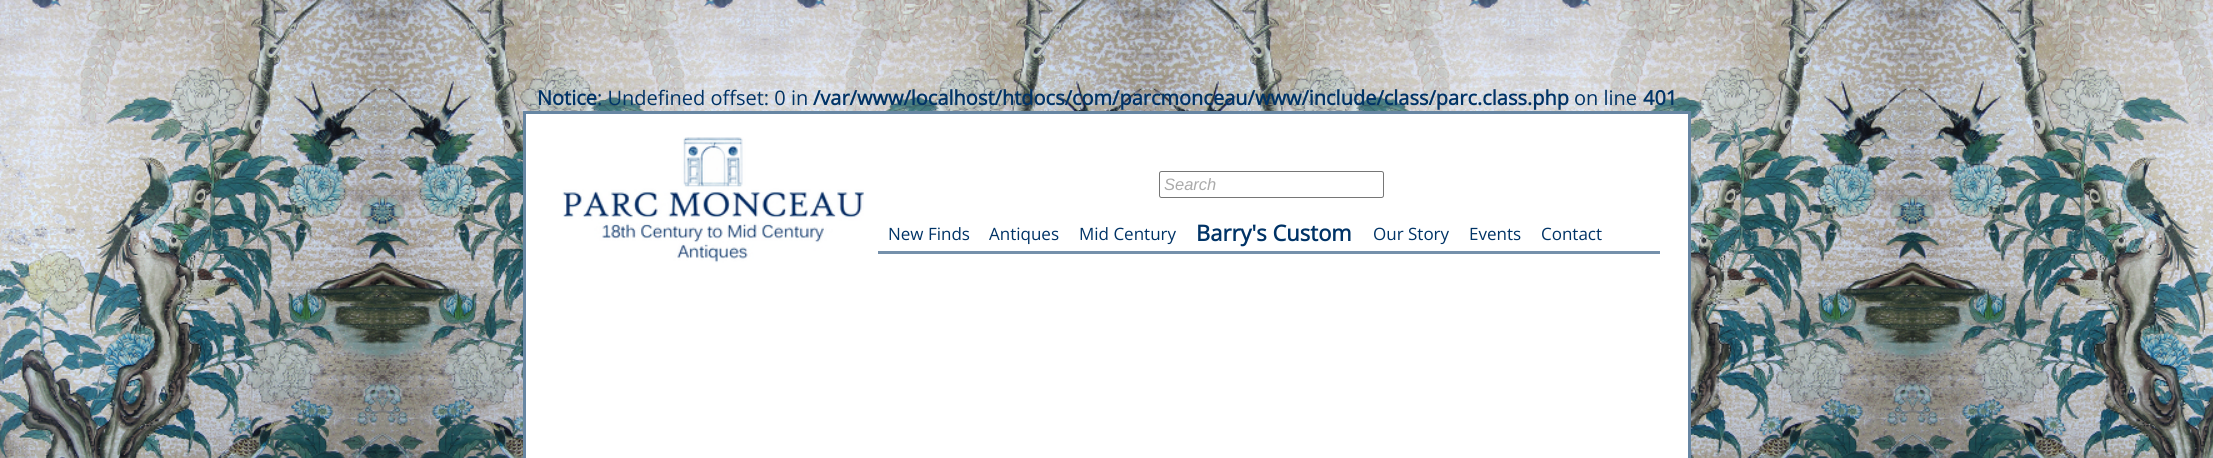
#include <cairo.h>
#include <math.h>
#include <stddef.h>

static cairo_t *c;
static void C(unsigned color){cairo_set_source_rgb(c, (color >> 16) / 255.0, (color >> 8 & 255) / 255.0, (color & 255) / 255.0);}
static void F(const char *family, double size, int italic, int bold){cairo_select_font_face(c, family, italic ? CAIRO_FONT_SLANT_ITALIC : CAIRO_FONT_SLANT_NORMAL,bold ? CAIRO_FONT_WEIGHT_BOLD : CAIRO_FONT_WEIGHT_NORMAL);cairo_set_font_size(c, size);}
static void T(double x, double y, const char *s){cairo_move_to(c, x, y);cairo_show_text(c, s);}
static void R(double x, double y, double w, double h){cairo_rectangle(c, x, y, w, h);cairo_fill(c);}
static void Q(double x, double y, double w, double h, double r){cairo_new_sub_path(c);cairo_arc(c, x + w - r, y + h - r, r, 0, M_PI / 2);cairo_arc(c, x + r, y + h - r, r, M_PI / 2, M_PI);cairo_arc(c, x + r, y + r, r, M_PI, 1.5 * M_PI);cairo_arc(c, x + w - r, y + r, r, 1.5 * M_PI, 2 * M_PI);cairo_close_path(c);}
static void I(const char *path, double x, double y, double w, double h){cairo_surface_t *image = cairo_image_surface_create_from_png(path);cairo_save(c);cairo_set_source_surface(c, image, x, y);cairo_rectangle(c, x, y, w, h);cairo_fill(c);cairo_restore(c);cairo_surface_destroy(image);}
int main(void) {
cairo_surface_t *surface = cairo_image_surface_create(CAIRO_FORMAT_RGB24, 2213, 458);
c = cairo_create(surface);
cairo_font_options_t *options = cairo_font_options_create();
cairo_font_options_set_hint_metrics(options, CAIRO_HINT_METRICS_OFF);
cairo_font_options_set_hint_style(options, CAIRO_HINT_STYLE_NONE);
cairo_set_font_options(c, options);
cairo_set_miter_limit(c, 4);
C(0xffffff);
cairo_paint(c);
I("1.png",0,0,2213,458);
F("Open Sans",20,0,1);
C(0x003366);
T(537,105,"Notice");
F("Open Sans",20,0,0);
T(597,105,": Undefined offset: 0 in");
F("Open Sans",20,0,1);
T(813,105,"/var/www/localhost/htdocs/com/parcmonceau/www/include/class/parc.class.php");
F("Open Sans",20,0,0);
T(1574,105,"on line");
F("Open Sans",20,0,1);
T(1643,105,"401");
C(0xffffff);
cairo_rectangle(c,524.5,112.5,1165,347);
cairo_fill_preserve(c);
C(0x6786a3);
cairo_set_line_width(c,3);
cairo_stroke(c);
I("2.png",562,137,302,126);
Q(1159.5,171.5,224,26,2);
C(0x767676);
cairo_set_line_width(c,1);
cairo_stroke(c);
F("Liberation Sans",16.5,1,0);
C(0xaaaaaa);
T(1164,190,"Search");
C(0x7590ab);
R(878,251,782,3);
F("Open Sans",17,0,0);
C(0x003366);
T(888,240,"New Finds");
T(989,240,"Antiques");
T(1079,240,"Mid Century");
F("Open Sans",22,0,1);
T(1196,241,"Barry's Custom");
F("Open Sans",17,0,0);
T(1373,240,"Our Story");
T(1469,240,"Events");
T(1541,240,"Contact");
cairo_surface_write_to_png(surface, "o.png");
cairo_font_options_destroy(options);
cairo_destroy(c);
cairo_surface_destroy(surface);
return 0;
}
